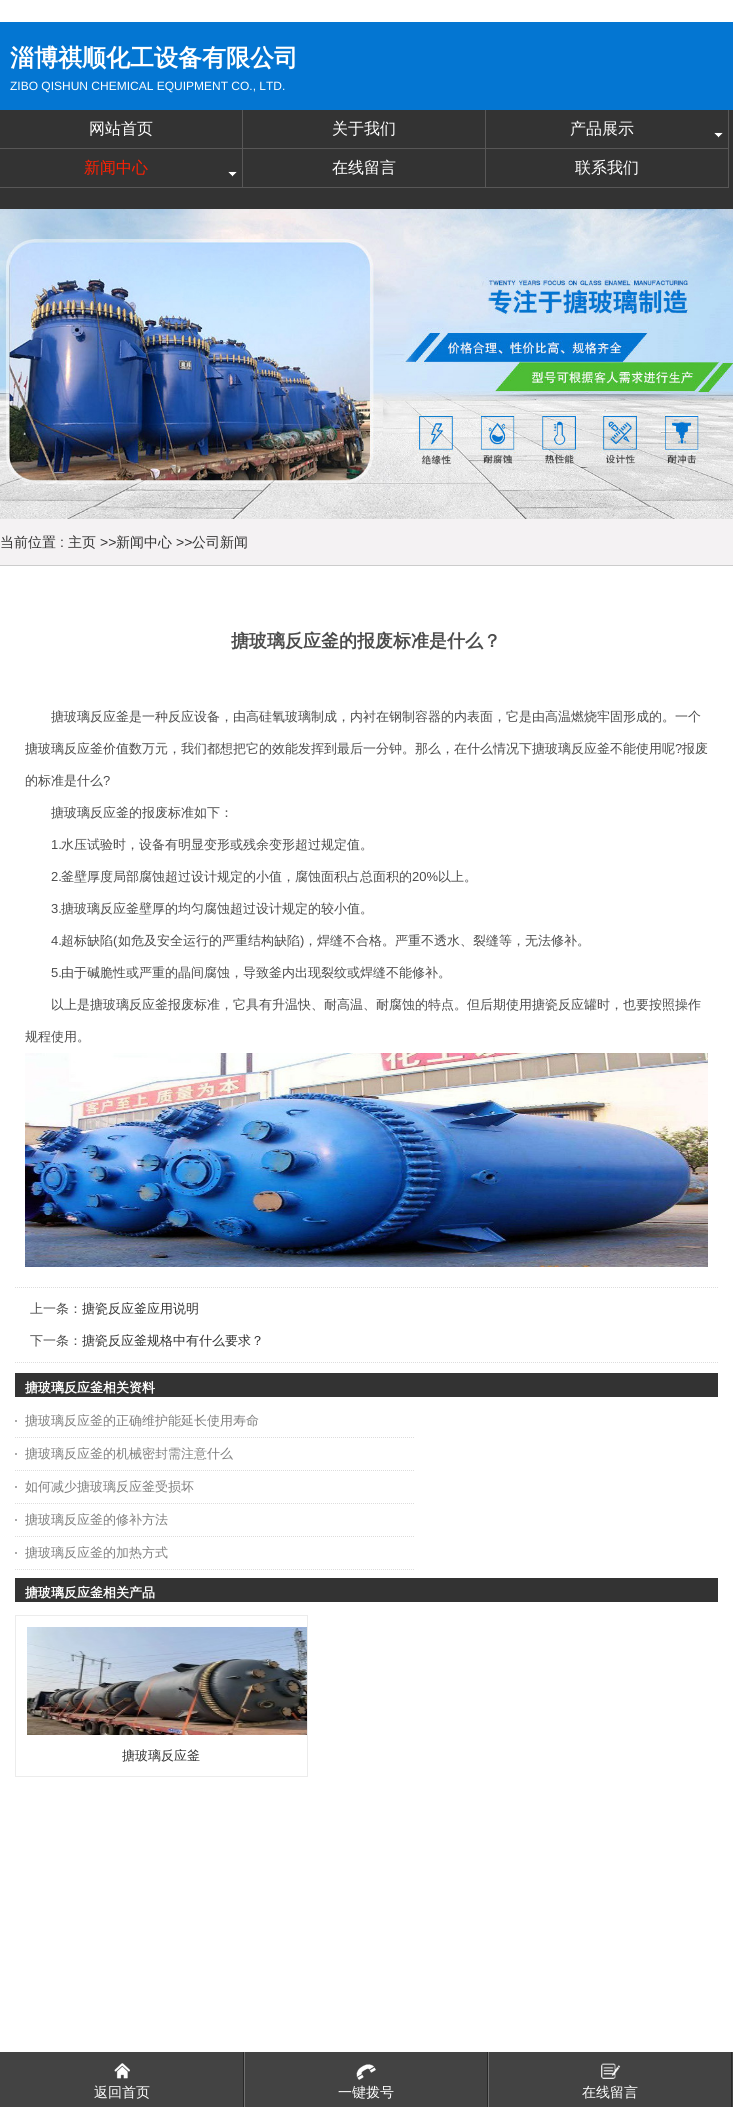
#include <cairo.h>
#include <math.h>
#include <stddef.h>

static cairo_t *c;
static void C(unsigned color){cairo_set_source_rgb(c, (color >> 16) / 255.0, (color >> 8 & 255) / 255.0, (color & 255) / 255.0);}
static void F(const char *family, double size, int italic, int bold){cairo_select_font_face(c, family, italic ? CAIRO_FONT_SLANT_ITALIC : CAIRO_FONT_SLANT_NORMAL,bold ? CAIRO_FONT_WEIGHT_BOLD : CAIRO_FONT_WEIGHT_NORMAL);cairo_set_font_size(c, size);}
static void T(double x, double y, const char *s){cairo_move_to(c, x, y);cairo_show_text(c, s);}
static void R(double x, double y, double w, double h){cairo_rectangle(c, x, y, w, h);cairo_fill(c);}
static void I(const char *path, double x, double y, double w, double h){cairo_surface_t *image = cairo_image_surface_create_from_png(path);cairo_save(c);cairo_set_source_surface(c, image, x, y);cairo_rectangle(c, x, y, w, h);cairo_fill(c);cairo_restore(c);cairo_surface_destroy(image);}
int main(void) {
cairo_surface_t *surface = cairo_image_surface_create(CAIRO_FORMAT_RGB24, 733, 2107);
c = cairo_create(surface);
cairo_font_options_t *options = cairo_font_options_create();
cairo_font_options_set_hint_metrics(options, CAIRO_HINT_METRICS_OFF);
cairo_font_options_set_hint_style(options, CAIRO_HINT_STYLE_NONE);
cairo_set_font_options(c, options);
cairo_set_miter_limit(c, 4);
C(0xffffff);
cairo_paint(c);
C(0x0476d2);
R(0,22,733,88);
F("WenQuanYi Zen Hei",24,0,1);
C(0xffffff);
T(10,66,"淄博祺顺化工设备有限公司");
F("Liberation Sans",12,0,0);
T(10,90,"ZIBO QISHUN CHEMICAL EQUIPMENT CO., LTD.");
C(0x333333);
R(0,110,733,99);
C(0x585757);
R(242,110,1,78);
R(0,148,243,1);
F("WenQuanYi Zen Hei Medium",16,0,0);
C(0xffffff);
T(89,134,"网站首页");
C(0x585757);
R(485,110,1,78);
R(243,148,243,1);
C(0xffffff);
T(332,134,"关于我们");
C(0x585757);
R(728,110,1,78);
R(486,148,243,1);
C(0xffffff);
T(570,134,"产品展示");
I("1.png",714,132,9,6);
C(0xff2002);
T(84,173,"新闻中心");
I("1.png",228,171,9,6);
C(0x585757);
R(0,187,486,1);
C(0xffffff);
T(332,173,"在线留言");
C(0x585757);
R(486,187,243,1);
C(0xffffff);
T(575,173,"联系我们");
I("2.png",0,209,733,310);
C(0xf4f2f3);
R(0,519,733,46);
C(0xcccccc);
R(0,565,733,1);
F("WenQuanYi Zen Hei Medium",14,0,0);
C(0x333333);
T(0,547,"当前位置");
F("Liberation Sans",14,0,0);
T(60,547,":");
F("WenQuanYi Zen Hei Medium",14,0,0);
T(68,547,"主页");
F("Liberation Sans",14,0,0);
T(100,547,">>");
F("WenQuanYi Zen Hei Medium",14,0,0);
T(116,547,"新闻中心");
F("Liberation Sans",14,0,0);
T(176,547,">>");
F("WenQuanYi Zen Hei Medium",14,0,0);
T(192,547,"公司新闻");
F("WenQuanYi Zen Hei",18,0,1);
C(0x4c4c4c);
T(231,647,"搪玻璃反应釜的报废标准是什么？");
F("WenQuanYi Zen Hei Medium",13,0,0);
T(51,721,"搪玻璃反应釜是一种反应设备，由高硅氧玻璃制成，内衬在钢制容器的内表面，它是由高温燃烧牢固形成的。一个");
T(25,753,"搪玻璃反应釜价值数万元，我们都想把它的效能发挥到最后一分钟。那么，在什么情况下搪玻璃反应釜不能使用呢");
F("Liberation Sans",13,0,0);
T(675,753,"?");
F("WenQuanYi Zen Hei Medium",13,0,0);
T(682,753,"报废");
T(25,785,"的标准是什么");
F("Liberation Sans",13,0,0);
T(103,785,"?");
F("WenQuanYi Zen Hei Medium",13,0,0);
T(51,817,"搪玻璃反应釜的报废标准如下：");
F("Liberation Sans",13,0,0);
T(51,849,"1.");
F("WenQuanYi Zen Hei Medium",13,0,0);
T(61,849,"水压试验时，设备有明显变形或残余变形超过规定值。");
F("Liberation Sans",13,0,0);
T(51,881,"2.");
F("WenQuanYi Zen Hei Medium",13,0,0);
T(61,881,"釜壁厚度局部腐蚀超过设计规定的小值，腐蚀面积占总面积的");
F("Liberation Sans",13,0,0);
T(412,881,"20%");
F("WenQuanYi Zen Hei Medium",13,0,0);
T(438,881,"以上。");
F("Liberation Sans",13,0,0);
T(51,913,"3.");
F("WenQuanYi Zen Hei Medium",13,0,0);
T(61,913,"搪玻璃反应釜壁厚的均匀腐蚀超过设计规定的较小值。");
F("Liberation Sans",13,0,0);
T(51,945,"4.");
F("WenQuanYi Zen Hei Medium",13,0,0);
T(61,945,"超标缺陷");
F("Liberation Sans",13,0,0);
T(113,945,"(");
F("WenQuanYi Zen Hei Medium",13,0,0);
T(118,945,"如危及安全运行的严重结构缺陷");
F("Liberation Sans",13,0,0);
T(300,945,")");
F("WenQuanYi Zen Hei Medium",13,0,0);
T(304,945,"，焊缝不合格。严重不透水、裂缝等，无法修补。");
F("Liberation Sans",13,0,0);
T(51,977,"5.");
F("WenQuanYi Zen Hei Medium",13,0,0);
T(61,977,"由于碱脆性或严重的晶间腐蚀，导致釜内出现裂纹或焊缝不能修补。");
T(51,1009,"以上是搪玻璃反应釜报废标准，它具有升温快、耐高温、耐腐蚀的特点。但后期使用搪瓷反应罐时，也要按照操作");
T(25,1041,"规程使用。");
I("3.png",25,1053,683,214);
cairo_new_path(c);
cairo_move_to(c,15,1287.5);
cairo_line_to(c,718,1287.5);
C(0xdddddd);
cairo_set_line_width(c,1);
cairo_set_dash(c,(double[]){1,1},2,0);
cairo_stroke(c);
cairo_new_path(c);
cairo_move_to(c,15,1362.5);
cairo_line_to(c,718,1362.5);
cairo_stroke(c);
C(0x4c4c4c);
T(30,1313,"上一条：");
C(0x333333);
T(82,1313,"搪瓷反应釜应用说明");
C(0x4c4c4c);
T(30,1345,"下一条：");
C(0x333333);
T(82,1345,"搪瓷反应釜规格中有什么要求？");
R(15,1373,703,24);
F("WenQuanYi Zen Hei",13,0,1);
C(0xffffff);
T(25,1392,"搪玻璃反应釜相关资料");
C(0xaaaaaa);
R(15,1420,2,2);
cairo_new_path(c);
cairo_move_to(c,15,1437.5);
cairo_line_to(c,415,1437.5);
C(0xdddddd);
cairo_stroke(c);
F("WenQuanYi Zen Hei Medium",13,0,0);
C(0x808080);
T(25,1425,"搪玻璃反应釜的正确维护能延长使用寿命");
C(0xaaaaaa);
R(15,1453,2,2);
cairo_new_path(c);
cairo_move_to(c,15,1470.5);
cairo_line_to(c,415,1470.5);
C(0xdddddd);
cairo_stroke(c);
C(0x808080);
T(25,1458,"搪玻璃反应釜的机械密封需注意什么");
C(0xaaaaaa);
R(15,1486,2,2);
cairo_new_path(c);
cairo_move_to(c,15,1503.5);
cairo_line_to(c,415,1503.5);
C(0xdddddd);
cairo_stroke(c);
C(0x808080);
T(25,1491,"如何减少搪玻璃反应釜受损坏");
C(0xaaaaaa);
R(15,1519,2,2);
cairo_new_path(c);
cairo_move_to(c,15,1536.5);
cairo_line_to(c,415,1536.5);
C(0xdddddd);
cairo_stroke(c);
C(0x808080);
T(25,1524,"搪玻璃反应釜的修补方法");
C(0xaaaaaa);
R(15,1552,2,2);
cairo_new_path(c);
cairo_move_to(c,15,1569.5);
cairo_line_to(c,415,1569.5);
C(0xdddddd);
cairo_stroke(c);
C(0x808080);
T(25,1557,"搪玻璃反应釜的加热方式");
C(0x333333);
R(15,1578,703,24);
F("WenQuanYi Zen Hei",13,0,1);
C(0xffffff);
T(25,1597,"搪玻璃反应釜相关产品");
cairo_rectangle(c,15.5,1615.5,292,161);
C(0xececec);
cairo_set_dash(c,NULL,0,0);
cairo_stroke(c);
I("4.png",27,1627,280,108);
F("WenQuanYi Zen Hei Medium",13,0,0);
C(0x333333);
T(122,1760,"搪玻璃反应釜");
C(0x434343);
R(0,2052,733,55);
C(0x282828);
R(243,2052,1,55);
I("5.png",114,2063,16,16);
F("WenQuanYi Zen Hei Medium",14,0,0);
C(0xffffff);
T(94,2097,"返回首页");
C(0x282828);
R(487,2052,1,55);
C(0x6f6f6f);
R(244,2052,1,55);
I("6.png",356,2064,20,16);
C(0xffffff);
T(338,2097,"一键拨号");
C(0x282828);
R(731,2052,1,55);
C(0x6f6f6f);
R(488,2052,1,55);
I("7.png",601,2063,20,16);
C(0xffffff);
T(582,2097,"在线留言");
cairo_surface_write_to_png(surface, "o.png");
cairo_font_options_destroy(options);
cairo_destroy(c);
cairo_surface_destroy(surface);
return 0;
}
